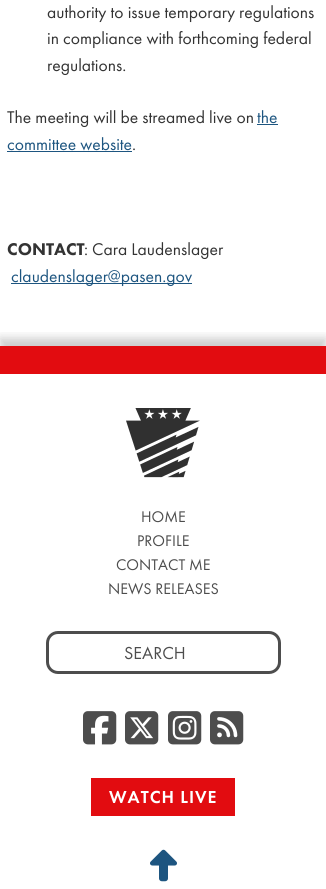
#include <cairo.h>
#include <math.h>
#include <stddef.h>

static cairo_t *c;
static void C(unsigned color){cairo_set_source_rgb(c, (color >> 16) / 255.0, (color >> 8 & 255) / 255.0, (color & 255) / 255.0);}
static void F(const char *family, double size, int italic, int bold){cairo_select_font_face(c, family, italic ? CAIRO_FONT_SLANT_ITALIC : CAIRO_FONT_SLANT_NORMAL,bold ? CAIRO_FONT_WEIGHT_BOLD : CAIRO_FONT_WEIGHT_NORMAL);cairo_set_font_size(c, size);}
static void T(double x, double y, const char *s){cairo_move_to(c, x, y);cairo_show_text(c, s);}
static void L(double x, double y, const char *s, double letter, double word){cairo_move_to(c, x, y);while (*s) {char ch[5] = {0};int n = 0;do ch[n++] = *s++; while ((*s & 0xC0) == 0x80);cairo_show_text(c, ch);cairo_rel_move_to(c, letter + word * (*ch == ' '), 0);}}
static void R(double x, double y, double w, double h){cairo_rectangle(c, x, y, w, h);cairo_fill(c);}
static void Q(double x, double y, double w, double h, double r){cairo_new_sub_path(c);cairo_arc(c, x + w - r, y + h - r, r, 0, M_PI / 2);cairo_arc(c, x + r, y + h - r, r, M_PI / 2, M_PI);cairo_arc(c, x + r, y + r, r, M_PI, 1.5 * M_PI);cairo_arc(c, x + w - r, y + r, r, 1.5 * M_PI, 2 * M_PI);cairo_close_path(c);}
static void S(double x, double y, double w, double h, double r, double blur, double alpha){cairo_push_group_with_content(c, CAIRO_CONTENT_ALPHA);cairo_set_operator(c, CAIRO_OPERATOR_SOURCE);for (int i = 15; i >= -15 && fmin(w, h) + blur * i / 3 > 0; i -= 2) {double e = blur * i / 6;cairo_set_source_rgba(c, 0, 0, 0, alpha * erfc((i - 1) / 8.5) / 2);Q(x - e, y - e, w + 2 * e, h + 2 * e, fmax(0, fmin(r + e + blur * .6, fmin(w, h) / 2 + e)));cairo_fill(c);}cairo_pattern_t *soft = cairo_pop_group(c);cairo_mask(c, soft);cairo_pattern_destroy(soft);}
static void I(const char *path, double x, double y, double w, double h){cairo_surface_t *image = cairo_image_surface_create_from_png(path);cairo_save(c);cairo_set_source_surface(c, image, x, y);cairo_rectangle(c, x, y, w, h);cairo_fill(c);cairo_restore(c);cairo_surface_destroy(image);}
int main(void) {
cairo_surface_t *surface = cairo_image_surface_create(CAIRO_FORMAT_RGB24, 326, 889);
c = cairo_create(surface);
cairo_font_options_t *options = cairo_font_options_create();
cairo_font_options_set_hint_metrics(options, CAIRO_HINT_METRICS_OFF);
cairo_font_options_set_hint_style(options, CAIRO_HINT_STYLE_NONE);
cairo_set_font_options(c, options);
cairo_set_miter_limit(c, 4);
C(0xffffff);
cairo_paint(c);
F("Futura PT",17.6,0,0);
C(0x333333);
T(47,18,"authority to issue temporary regulations");
T(47,44,"in compliance with forthcoming federal");
T(47,71,"regulations.");
T(7,123,"The meeting will be streamed live on");
C(0x1d5580);
T(257,123,"the");
R(257,124,21,1);
T(7,150,"committee website");
R(7,151,125,1);
C(0x333333);
T(132,150,".");
F("Futura PT Black",17.6,0,0);
T(7,255,"CONTACT");
F("Futura PT",17.6,0,0);
T(84,255,": Cara Laudenslager");
C(0x1d5580);
R(11,283,181,1);
T(11,282,"claudenslager@pasen.gov");
cairo_save(c);
cairo_rectangle(c,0,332,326,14);
cairo_clip(c);
C(0x000000);
S(0,338,326,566,0,5,.2);
cairo_restore(c);
C(0xe20c10);
R(0,346,326,28);
I("1.png",126,408,74,70);
F("Futura PT",16,0,0);
C(0x4d4d4d);
T(141,522,"HOME");
T(137,546,"PROFILE");
T(116,570,"CONTACT ME");
T(108,594,"NEWS RELEASES");
Q(47.5,632.5,232,40,10.5);
cairo_set_line_width(c,3);
cairo_stroke(c);
F("Futura PT",18,0,0);
T(124,659,"SEARCH");
I("2.png",83,711,34,34);
I("3.png",125,711,34,34);
I("4.png",168,711,34,34);
I("5.png",210,711,34,34);
C(0xe20c10);
R(91,778,144,38);
F("Futura PT Medium",18,0,0);
C(0xffffff);
L(109,803,"WATCH LIVE",1,0);
I("6.png",150,849,27,33);
cairo_surface_write_to_png(surface, "o.png");
cairo_font_options_destroy(options);
cairo_destroy(c);
cairo_surface_destroy(surface);
return 0;
}
